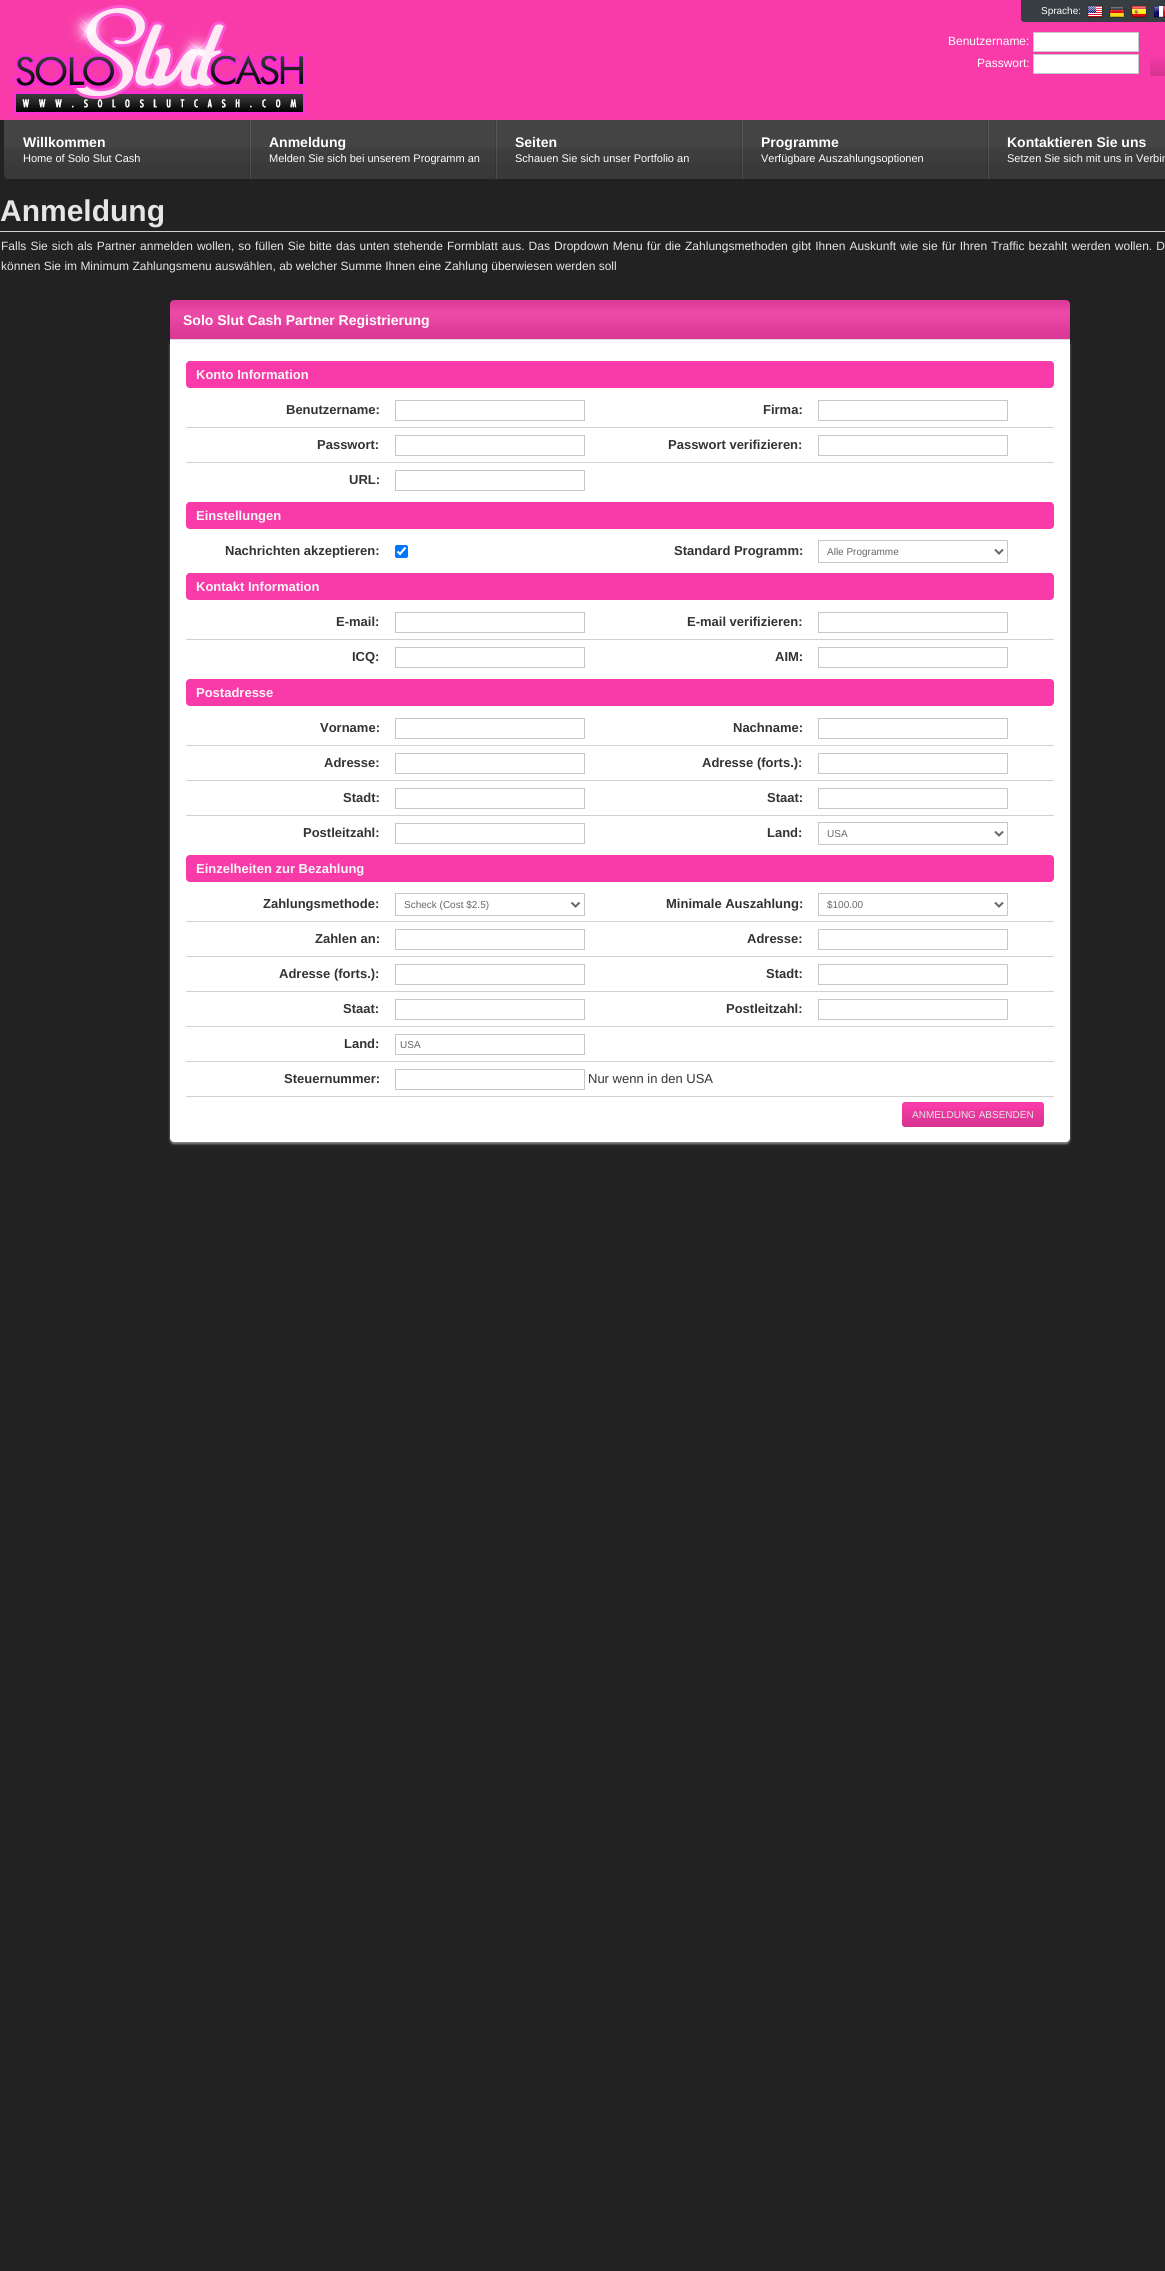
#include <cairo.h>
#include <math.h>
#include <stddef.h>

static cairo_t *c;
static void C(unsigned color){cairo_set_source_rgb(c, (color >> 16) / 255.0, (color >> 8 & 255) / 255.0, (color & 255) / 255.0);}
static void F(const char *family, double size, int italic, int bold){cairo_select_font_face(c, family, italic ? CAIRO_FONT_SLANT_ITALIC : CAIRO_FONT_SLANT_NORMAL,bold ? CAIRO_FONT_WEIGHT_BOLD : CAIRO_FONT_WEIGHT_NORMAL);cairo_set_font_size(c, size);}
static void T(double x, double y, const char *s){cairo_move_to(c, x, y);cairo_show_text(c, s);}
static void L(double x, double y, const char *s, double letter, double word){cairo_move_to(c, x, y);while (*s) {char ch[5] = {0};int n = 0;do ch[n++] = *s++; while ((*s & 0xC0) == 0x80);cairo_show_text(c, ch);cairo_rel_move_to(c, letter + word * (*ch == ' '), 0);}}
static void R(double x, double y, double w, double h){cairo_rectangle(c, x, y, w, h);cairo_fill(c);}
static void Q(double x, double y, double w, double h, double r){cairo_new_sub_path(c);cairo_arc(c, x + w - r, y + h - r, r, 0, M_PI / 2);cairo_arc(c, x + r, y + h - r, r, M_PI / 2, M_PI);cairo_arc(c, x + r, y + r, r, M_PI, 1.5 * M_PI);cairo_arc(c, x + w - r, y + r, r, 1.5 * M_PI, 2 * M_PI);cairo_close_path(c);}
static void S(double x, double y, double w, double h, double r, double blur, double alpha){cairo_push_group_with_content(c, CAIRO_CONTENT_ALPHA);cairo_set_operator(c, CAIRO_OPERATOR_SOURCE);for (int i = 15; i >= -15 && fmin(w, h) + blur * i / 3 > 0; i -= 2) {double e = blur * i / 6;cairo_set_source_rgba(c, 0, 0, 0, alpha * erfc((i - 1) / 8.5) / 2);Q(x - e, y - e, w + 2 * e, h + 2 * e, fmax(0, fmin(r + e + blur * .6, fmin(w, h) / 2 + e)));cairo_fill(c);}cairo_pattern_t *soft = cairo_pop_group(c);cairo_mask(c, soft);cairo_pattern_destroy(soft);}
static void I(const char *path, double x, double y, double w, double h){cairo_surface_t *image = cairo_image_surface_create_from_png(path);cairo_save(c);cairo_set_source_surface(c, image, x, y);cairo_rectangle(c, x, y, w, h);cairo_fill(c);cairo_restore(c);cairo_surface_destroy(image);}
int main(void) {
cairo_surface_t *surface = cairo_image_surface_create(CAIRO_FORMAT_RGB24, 1165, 2271);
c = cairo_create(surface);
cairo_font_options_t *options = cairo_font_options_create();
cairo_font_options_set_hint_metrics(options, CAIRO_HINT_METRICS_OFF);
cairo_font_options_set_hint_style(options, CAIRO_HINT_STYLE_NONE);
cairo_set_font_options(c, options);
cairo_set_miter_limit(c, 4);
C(0x222222);
cairo_paint(c);
C(0xf83ba8);
R(0,0,1165,120);
I("1.png",13,5,293,110);
C(0x373e41);
cairo_new_path(c);
cairo_move_to(c,1021,0);
cairo_line_to(c,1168,0);
cairo_line_to(c,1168,19);
cairo_curve_to(c,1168,20.5,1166.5,22,1165,22);
cairo_line_to(c,1024,22);
cairo_curve_to(c,1022.5,22,1021,20.5,1021,19);
cairo_close_path(c);
cairo_fill(c);
F("Liberation Sans",10,0,0);
C(0xffffff);
T(1041,14,"Sprache:");
I("2.png",1087,5,16,13);
I("3.png",1109,5,16,13);
I("4.png",1131,5,16,13);
I("5.png",1153,5,12,13);
F("Liberation Sans",12,0,0);
T(948,45,"Benutzername:");
cairo_rectangle(c,1033.5,32.5,105,19);
cairo_fill_preserve(c);
C(0xc7c7c7);
cairo_set_line_width(c,1);
cairo_stroke(c);
C(0xffffff);
T(977,67,"Passwort:");
cairo_rectangle(c,1033.5,54.5,105,19);
cairo_fill_preserve(c);
C(0xc7c7c7);
cairo_stroke(c);
I("6.png",1150,57,15,19);
C(0x444444);
cairo_new_path(c);
cairo_move_to(c,4,120);
cairo_line_to(c,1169,120);
cairo_line_to(c,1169,175);
cairo_curve_to(c,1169,177,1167,179,1165,179);
cairo_line_to(c,8,179);
cairo_curve_to(c,6,179,4,177,4,175);
cairo_close_path(c);
cairo_fill(c);
I("7.png",4,147,1161,32);
F("Liberation Sans",14,0,1);
C(0xffffff);
T(23,147,"Willkommen");
F("Liberation Sans",11,0,0);
T(23,162,"Home of Solo Slut Cash");
I("8.png",249,120,2,59);
F("Liberation Sans",14,0,1);
T(269,147,"Anmeldung");
F("Liberation Sans",11,0,0);
T(269,162,"Melden Sie sich bei unserem Programm an");
I("8.png",495,120,2,59);
F("Liberation Sans",14,0,1);
T(515,147,"Seiten");
F("Liberation Sans",11,0,0);
T(515,162,"Schauen Sie sich unser Portfolio an");
I("8.png",741,120,2,59);
F("Liberation Sans",14,0,1);
T(761,147,"Programme");
F("Liberation Sans",11,0,0);
T(761,162,"Verfügbare Auszahlungsoptionen");
I("8.png",987,120,2,59);
F("Liberation Sans",14,0,1);
T(1007,147,"Kontaktieren Sie uns");
F("Liberation Sans",11,0,0);
T(1007,162,"Setzen Sie sich mit uns in Verbin");
C(0xd1d1d1);
R(0,231,1165,1);
F("Liberation Sans",30,0,1);
C(0xe6e6e6);
T(0,221,"Anmeldung");
F("Liberation Sans",12,0,0);
L(1,250,"Falls Sie sich als Partner anmelden wollen, so füllen Sie bitte das unten stehende Formblatt aus. Das Dropdown Menu für die Zahlungsmethoden gibt Ihnen Auskunft wie sie für Ihren Traffic bezahlt werden wollen. D",0,.75);
T(1,270,"können Sie im Minimum Zahlungsmenu auswählen, ab welcher Summe Ihnen eine Zahlung überwiesen werden soll");
C(0x888888);
S(170,341,900,803,4,1,1);
C(0xf83ba8);
cairo_new_path(c);
cairo_move_to(c,174,300);
cairo_line_to(c,1066,300);
cairo_curve_to(c,1068,300,1070,302,1070,304);
cairo_line_to(c,1070,339);
cairo_line_to(c,170,339);
cairo_line_to(c,170,304);
cairo_curve_to(c,170,302,172,300,174,300);
cairo_close_path(c);
cairo_fill(c);
I("9.png",170,300,900,39);
F("Liberation Sans",14,0,1);
C(0xffffff);
T(183,325,"Solo Slut Cash Partner Registrierung");
cairo_new_path(c);
cairo_move_to(c,170,339);
cairo_line_to(c,1070,339);
cairo_line_to(c,1070,1138);
cairo_curve_to(c,1070,1140,1068,1142,1066,1142);
cairo_line_to(c,174,1142);
cairo_curve_to(c,172,1142,170,1140,170,1138);
cairo_close_path(c);
cairo_fill(c);
C(0xd9d9d9);
R(170,339,900,1);
C(0xf83ba8);
Q(186,361,868,27,4);
cairo_fill(c);
F("Liberation Sans",13,0,1);
C(0xf7f7f7);
T(196,379,"Konto Information");
C(0xd1d1d1);
R(186,427,868,1);
C(0x333333);
T(286,414,"Benutzername:");
cairo_rectangle(c,395.5,400.5,189,20);
C(0xc7c7c7);
cairo_stroke(c);
C(0x333333);
T(763,414,"Firma:");
cairo_rectangle(c,818.5,400.5,189,20);
C(0xc7c7c7);
cairo_stroke(c);
C(0xd1d1d1);
R(186,462,868,1);
C(0x333333);
T(317,449,"Passwort:");
cairo_rectangle(c,395.5,435.5,189,20);
C(0xc7c7c7);
cairo_stroke(c);
C(0x333333);
T(668,449,"Passwort verifizieren:");
cairo_rectangle(c,818.5,435.5,189,20);
C(0xc7c7c7);
cairo_stroke(c);
C(0x333333);
T(349,484,"URL:");
cairo_rectangle(c,395.5,470.5,189,20);
C(0xc7c7c7);
cairo_stroke(c);
C(0xf83ba8);
Q(186,502,868,27,4);
cairo_fill(c);
C(0xf7f7f7);
T(196,520,"Einstellungen");
C(0x333333);
T(225,555,"Nachrichten akzeptieren:");
C(0x0075ff);
Q(395,545,13,13,2);
cairo_fill(c);
cairo_new_path(c);
cairo_move_to(c,397.5,551.5);
cairo_line_to(c,400,554);
cairo_line_to(c,405.5,547.5);
C(0xffffff);
cairo_set_line_width(c,2.1);
cairo_stroke(c);
C(0x333333);
T(674,555,"Standard Programm:");
cairo_rectangle(c,818.5,540.5,189,22);
C(0xc7c7c7);
cairo_set_line_width(c,1);
cairo_stroke(c);
cairo_new_path(c);
cairo_move_to(c,995,549.5);
cairo_line_to(c,999,553.5);
cairo_line_to(c,1003,549.5);
C(0x666666);
cairo_set_line_width(c,2);
cairo_stroke(c);
F("Liberation Sans",10,0,0);
T(827,555,"Alle Programme");
C(0xf83ba8);
Q(186,573,868,27,4);
cairo_fill(c);
F("Liberation Sans",13,0,1);
C(0xf7f7f7);
T(196,591,"Kontakt Information");
C(0xd1d1d1);
R(186,639,868,1);
C(0x333333);
T(336,626,"E-mail:");
cairo_rectangle(c,395.5,612.5,189,20);
C(0xc7c7c7);
cairo_set_line_width(c,1);
cairo_stroke(c);
C(0x333333);
T(687,626,"E-mail verifizieren:");
cairo_rectangle(c,818.5,612.5,189,20);
C(0xc7c7c7);
cairo_stroke(c);
C(0x333333);
T(352,661,"ICQ:");
cairo_rectangle(c,395.5,647.5,189,20);
C(0xc7c7c7);
cairo_stroke(c);
C(0x333333);
T(775,661,"AIM:");
cairo_rectangle(c,818.5,647.5,189,20);
C(0xc7c7c7);
cairo_stroke(c);
C(0xf83ba8);
Q(186,679,868,27,4);
cairo_fill(c);
C(0xf7f7f7);
T(196,697,"Postadresse");
C(0xd1d1d1);
R(186,745,868,1);
C(0x333333);
T(320,732,"Vorname:");
cairo_rectangle(c,395.5,718.5,189,20);
C(0xc7c7c7);
cairo_stroke(c);
C(0x333333);
T(733,732,"Nachname:");
cairo_rectangle(c,818.5,718.5,189,20);
C(0xc7c7c7);
cairo_stroke(c);
C(0xd1d1d1);
R(186,780,868,1);
C(0x333333);
T(324,767,"Adresse:");
cairo_rectangle(c,395.5,753.5,189,20);
C(0xc7c7c7);
cairo_stroke(c);
C(0x333333);
T(702,767,"Adresse (forts.):");
cairo_rectangle(c,818.5,753.5,189,20);
C(0xc7c7c7);
cairo_stroke(c);
C(0xd1d1d1);
R(186,815,868,1);
C(0x333333);
T(343,802,"Stadt:");
cairo_rectangle(c,395.5,788.5,189,20);
C(0xc7c7c7);
cairo_stroke(c);
C(0x333333);
T(767,802,"Staat:");
cairo_rectangle(c,818.5,788.5,189,20);
C(0xc7c7c7);
cairo_stroke(c);
C(0x333333);
T(303,837,"Postleitzahl:");
cairo_rectangle(c,395.5,823.5,189,20);
C(0xc7c7c7);
cairo_stroke(c);
C(0x333333);
T(767,837,"Land:");
cairo_rectangle(c,818.5,822.5,189,22);
C(0xc7c7c7);
cairo_stroke(c);
cairo_new_path(c);
cairo_move_to(c,995,831.5);
cairo_line_to(c,999,835.5);
cairo_line_to(c,1003,831.5);
C(0x666666);
cairo_set_line_width(c,2);
cairo_stroke(c);
F("Liberation Sans",10,0,0);
T(827,837,"USA");
C(0xf83ba8);
Q(186,855,868,27,4);
cairo_fill(c);
F("Liberation Sans",13,0,1);
C(0xf7f7f7);
T(196,873,"Einzelheiten zur Bezahlung");
C(0xd1d1d1);
R(186,921,868,1);
C(0x333333);
T(263,908,"Zahlungsmethode:");
cairo_rectangle(c,395.5,893.5,189,22);
C(0xc7c7c7);
cairo_set_line_width(c,1);
cairo_stroke(c);
cairo_new_path(c);
cairo_move_to(c,571.5,902.5);
cairo_line_to(c,575.5,906.5);
cairo_line_to(c,579.5,902.5);
C(0x666666);
cairo_set_line_width(c,2);
cairo_stroke(c);
F("Liberation Sans",10,0,0);
T(404,908,"Scheck (Cost $2.5)");
F("Liberation Sans",13,0,1);
C(0x333333);
T(666,908,"Minimale Auszahlung:");
cairo_rectangle(c,818.5,893.5,189,22);
C(0xc7c7c7);
cairo_set_line_width(c,1);
cairo_stroke(c);
cairo_new_path(c);
cairo_move_to(c,995,902.5);
cairo_line_to(c,999,906.5);
cairo_line_to(c,1003,902.5);
C(0x666666);
cairo_set_line_width(c,2);
cairo_stroke(c);
F("Liberation Sans",10,0,0);
T(827,908,"$100.00");
C(0xd1d1d1);
R(186,956,868,1);
F("Liberation Sans",13,0,1);
C(0x333333);
T(315,943,"Zahlen an:");
cairo_rectangle(c,395.5,929.5,189,20);
C(0xc7c7c7);
cairo_set_line_width(c,1);
cairo_stroke(c);
C(0x333333);
T(747,943,"Adresse:");
cairo_rectangle(c,818.5,929.5,189,20);
C(0xc7c7c7);
cairo_stroke(c);
C(0xd1d1d1);
R(186,991,868,1);
C(0x333333);
T(279,978,"Adresse (forts.):");
cairo_rectangle(c,395.5,964.5,189,20);
C(0xc7c7c7);
cairo_stroke(c);
C(0x333333);
T(766,978,"Stadt:");
cairo_rectangle(c,818.5,964.5,189,20);
C(0xc7c7c7);
cairo_stroke(c);
C(0xd1d1d1);
R(186,1026,868,1);
C(0x333333);
T(343,1013,"Staat:");
cairo_rectangle(c,395.5,999.5,189,20);
C(0xc7c7c7);
cairo_stroke(c);
C(0x333333);
T(726,1013,"Postleitzahl:");
cairo_rectangle(c,818.5,999.5,189,20);
C(0xc7c7c7);
cairo_stroke(c);
C(0xd1d1d1);
R(186,1061,868,1);
C(0x333333);
T(344,1048,"Land:");
cairo_rectangle(c,395.5,1034.5,189,20);
C(0xc7c7c7);
cairo_stroke(c);
F("Liberation Sans",10,0,0);
C(0x666666);
T(400,1048,"USA");
C(0xd1d1d1);
R(186,1096,868,1);
F("Liberation Sans",13,0,1);
C(0x333333);
T(284,1083,"Steuernummer:");
cairo_rectangle(c,395.5,1069.5,189,20);
C(0xc7c7c7);
cairo_stroke(c);
F("Liberation Sans",13,0,0);
C(0x333333);
T(588,1083,"Nur wenn in den USA");
C(0xf83ba8);
Q(902,1102,142,25,3);
cairo_fill(c);
I("10.png",902,1108,142,19);
F("Liberation Sans",10,0,0);
C(0xe6e6e6);
T(912,1118,"ANMELDUNG ABSENDEN");
cairo_surface_write_to_png(surface, "o.png");
cairo_font_options_destroy(options);
cairo_destroy(c);
cairo_surface_destroy(surface);
return 0;
}
